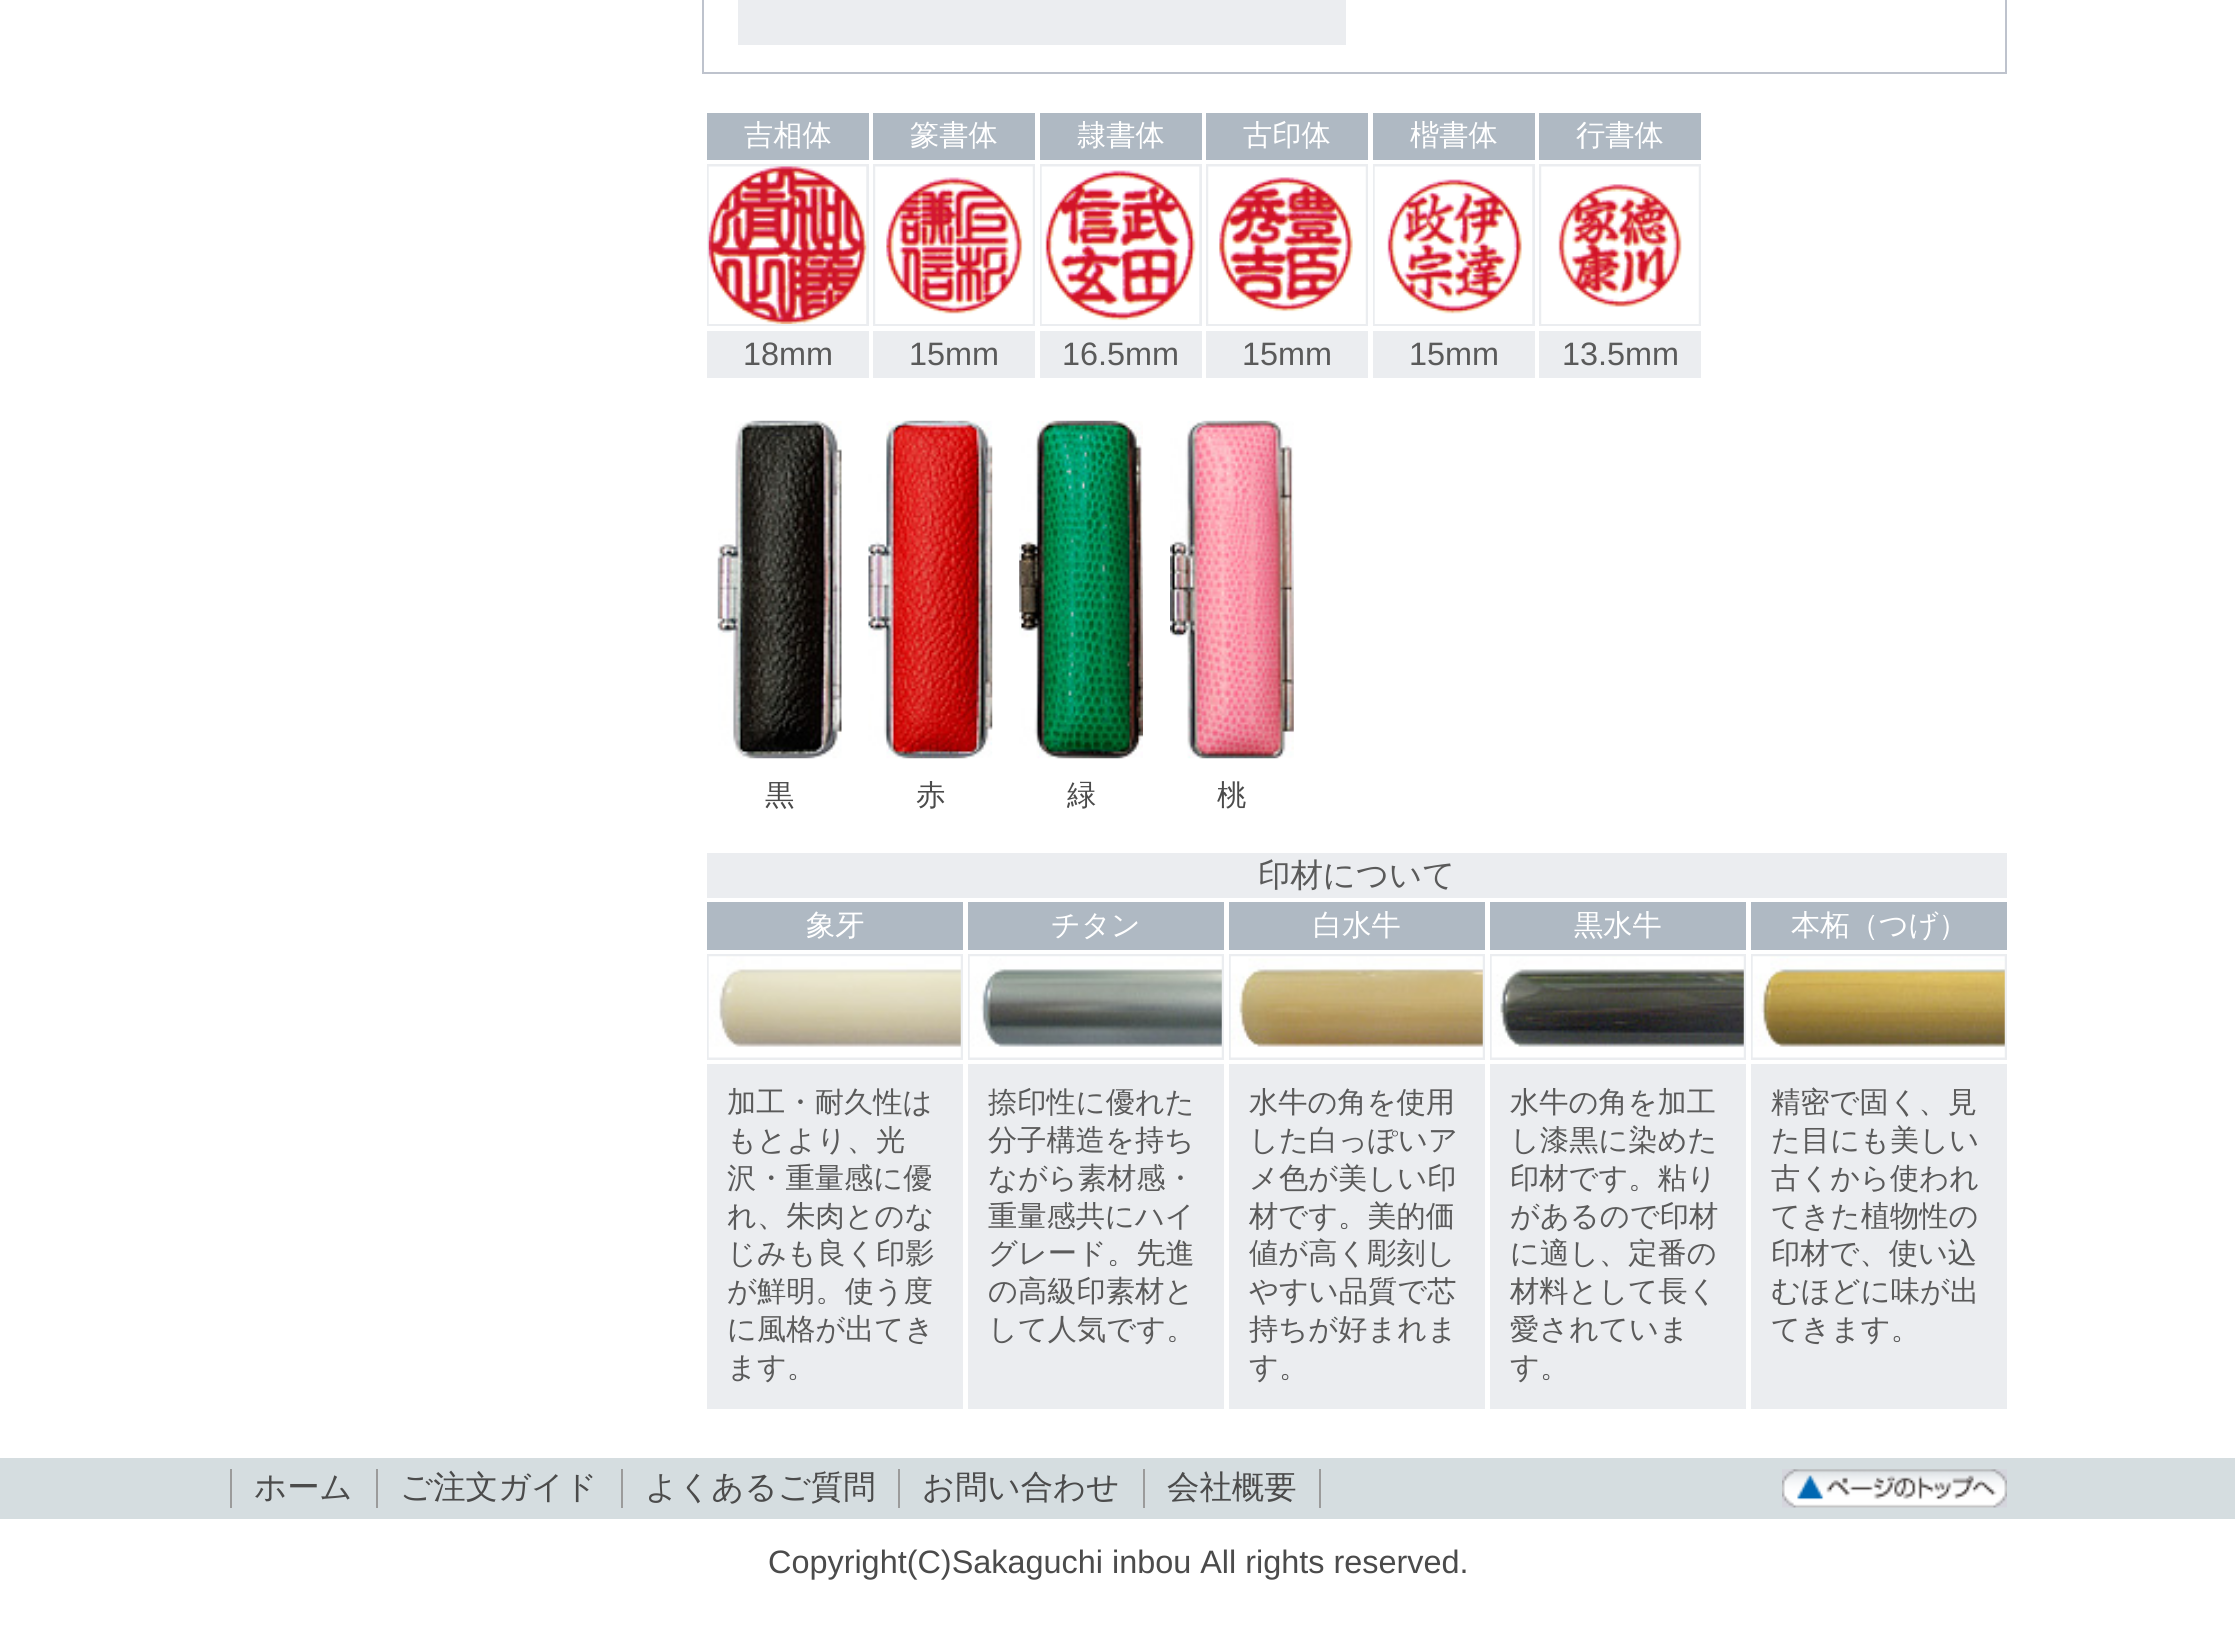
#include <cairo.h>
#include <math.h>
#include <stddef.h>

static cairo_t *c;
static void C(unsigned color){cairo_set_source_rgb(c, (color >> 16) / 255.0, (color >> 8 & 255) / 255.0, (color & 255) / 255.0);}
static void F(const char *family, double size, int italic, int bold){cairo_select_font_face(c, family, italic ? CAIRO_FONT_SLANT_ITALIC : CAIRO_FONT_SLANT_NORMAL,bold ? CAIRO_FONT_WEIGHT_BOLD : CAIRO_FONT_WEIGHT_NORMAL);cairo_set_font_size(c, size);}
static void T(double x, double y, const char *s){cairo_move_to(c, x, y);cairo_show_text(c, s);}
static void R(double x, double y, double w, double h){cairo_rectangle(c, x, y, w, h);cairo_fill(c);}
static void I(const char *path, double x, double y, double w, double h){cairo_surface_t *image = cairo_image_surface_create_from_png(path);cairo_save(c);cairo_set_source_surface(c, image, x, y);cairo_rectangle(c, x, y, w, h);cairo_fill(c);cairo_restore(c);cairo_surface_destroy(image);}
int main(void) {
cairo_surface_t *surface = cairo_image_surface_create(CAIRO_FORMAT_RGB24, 2235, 1629);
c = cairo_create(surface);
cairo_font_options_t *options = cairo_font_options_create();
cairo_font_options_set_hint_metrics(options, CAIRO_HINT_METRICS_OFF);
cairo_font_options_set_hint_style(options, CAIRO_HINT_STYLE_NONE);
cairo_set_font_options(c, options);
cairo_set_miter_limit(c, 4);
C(0xffffff);
cairo_paint(c);
cairo_rectangle(c,703,-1,1303,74);
C(0xbec3cd);
cairo_stroke(c);
C(0xebedf0);
R(738,0,608,45);
C(0xafb9c3);
R(707,113,162,47);
F("WenQuanYi Zen Hei Medium",29.25,0,0);
C(0xffffff);
T(744,145,"吉相体");
C(0xafb9c3);
R(873,113,162,47);
C(0xffffff);
T(910,145,"篆書体");
C(0xafb9c3);
R(1040,113,162,47);
C(0xffffff);
T(1077,145,"隷書体");
C(0xafb9c3);
R(1206,113,162,47);
C(0xffffff);
T(1243,145,"古印体");
C(0xafb9c3);
R(1373,113,162,47);
C(0xffffff);
T(1410,145,"楷書体");
C(0xafb9c3);
R(1539,113,162,47);
C(0xffffff);
T(1576,145,"行書体");
C(0xebedf0);
R(707,164,162,162);
I("1.png",708,166,159,158);
R(873,164,162,162);
I("2.png",875,166,158,158);
R(1040,164,162,162);
I("3.png",1041,166,159,158);
R(1206,164,162,162);
I("4.png",1208,166,158,158);
R(1373,164,162,162);
I("5.png",1374,166,159,158);
R(1539,164,162,162);
I("6.png",1541,166,158,158);
R(707,331,162,47);
F("Liberation Sans",32.4,0,0);
C(0x5a5a5a);
T(743,365,"18mm");
C(0xebedf0);
R(873,331,162,47);
C(0x5a5a5a);
T(909,365,"15mm");
C(0xebedf0);
R(1040,331,162,47);
C(0x5a5a5a);
T(1062,365,"16.5mm");
C(0xebedf0);
R(1206,331,162,47);
C(0x5a5a5a);
T(1242,365,"15mm");
C(0xebedf0);
R(1373,331,162,47);
C(0x5a5a5a);
T(1409,365,"15mm");
C(0xebedf0);
R(1539,331,162,47);
C(0x5a5a5a);
T(1562,365,"13.5mm");
I("7.png",717,420,125,339);
I("8.png",868,420,125,339);
I("9.png",1019,420,124,339);
I("10.png",1170,420,124,339);
F("WenQuanYi Zen Hei Medium",29.25,0,0);
C(0x4b4b4b);
T(765,805,"黒");
T(916,805,"赤");
T(1067,805,"緑");
T(1217,805,"桃");
C(0xebedf0);
R(707,853,1300,45);
F("WenQuanYi Zen Hei Medium",32.4,0,0);
C(0x5a5a5a);
T(1258,886,"印材について");
C(0xafb9c3);
R(707,902,256,48);
F("WenQuanYi Zen Hei Medium",29.25,0,0);
C(0xffffff);
T(806,935,"象牙");
C(0xafb9c3);
R(968,902,256,48);
C(0xffffff);
T(1051,935,"チタン");
C(0xafb9c3);
R(1229,902,256,48);
C(0xffffff);
T(1313,935,"白水牛");
C(0xafb9c3);
R(1490,902,256,48);
C(0xffffff);
T(1574,935,"黒水牛");
C(0xafb9c3);
R(1751,902,256,48);
C(0xffffff);
T(1791,935,"本柘（つげ）");
C(0xebedf0);
R(707,954,256,106);
I("11.png",708,956,253,102);
R(968,954,256,106);
I("12.png",969,956,253,102);
R(1229,954,256,106);
I("13.png",1230,956,253,102);
R(1490,954,256,106);
I("14.png",1491,956,253,102);
R(1751,954,256,106);
I("15.png",1752,956,253,102);
R(707,1064,256,345);
C(0x5a5a5a);
T(727,1112,"加工・耐久性は");
T(727,1150,"もとより、光");
T(727,1188,"沢・重量感に優");
T(727,1226,"れ、朱肉とのな");
T(727,1263,"じみも良く印影");
T(727,1301,"が鮮明。使う度");
T(727,1339,"に風格が出てき");
T(727,1377,"ます。");
C(0xebedf0);
R(968,1064,256,345);
C(0x5a5a5a);
T(988,1112,"捺印性に優れた");
T(988,1150,"分子構造を持ち");
T(988,1188,"ながら素材感・");
T(988,1226,"重量感共にハイ");
T(988,1263,"グレード。先進");
T(988,1301,"の高級印素材と");
T(988,1339,"して人気です。");
C(0xebedf0);
R(1229,1064,256,345);
C(0x5a5a5a);
T(1249,1112,"水牛の角を使用");
T(1249,1150,"した白っぽいア");
T(1249,1188,"メ色が美しい印");
T(1249,1226,"材です。美的価");
T(1249,1263,"値が高く彫刻し");
T(1249,1301,"やすい品質で芯");
T(1249,1339,"持ちが好まれま");
T(1249,1377,"す。");
C(0xebedf0);
R(1490,1064,256,345);
C(0x5a5a5a);
T(1510,1112,"水牛の角を加工");
T(1510,1150,"し漆黒に染めた");
T(1510,1188,"印材です。粘り");
T(1510,1226,"があるので印材");
T(1510,1263,"に適し、定番の");
T(1510,1301,"材料として長く");
T(1510,1339,"愛されていま");
T(1510,1377,"す。");
C(0xebedf0);
R(1751,1064,256,345);
C(0x5a5a5a);
T(1771,1112,"精密で固く、見");
T(1771,1150,"た目にも美しい");
T(1771,1188,"古くから使われ");
T(1771,1226,"てきた植物性の");
T(1771,1263,"印材で、使い込");
T(1771,1301,"むほどに味が出");
T(1771,1339,"てきます。");
C(0xd5dde0);
R(0,1458,2235,61);
C(0x9b9b9b);
R(230,1469,2,39);
R(376,1469,2,39);
F("WenQuanYi Zen Hei Medium",32.4,0,0);
C(0x4b4b4b);
T(254,1498,"ホーム");
C(0x9b9b9b);
R(621,1469,2,39);
C(0x4b4b4b);
T(400,1498,"ご注文ガイド");
C(0x9b9b9b);
R(898,1469,2,39);
C(0x4b4b4b);
T(645,1498,"よくあるご質問");
C(0x9b9b9b);
R(1143,1469,2,39);
C(0x4b4b4b);
T(922,1498,"お問い合わせ");
C(0x9b9b9b);
R(1319,1469,2,39);
C(0x4b4b4b);
T(1167,1498,"会社概要");
I("16.png",1782,1469,225,39);
F("Liberation Sans",32.4,0,0);
T(768,1573,"Copyright(C)Sakaguchi inbou All rights reserved.");
cairo_surface_write_to_png(surface, "o.png");
cairo_font_options_destroy(options);
cairo_destroy(c);
cairo_surface_destroy(surface);
return 0;
}
